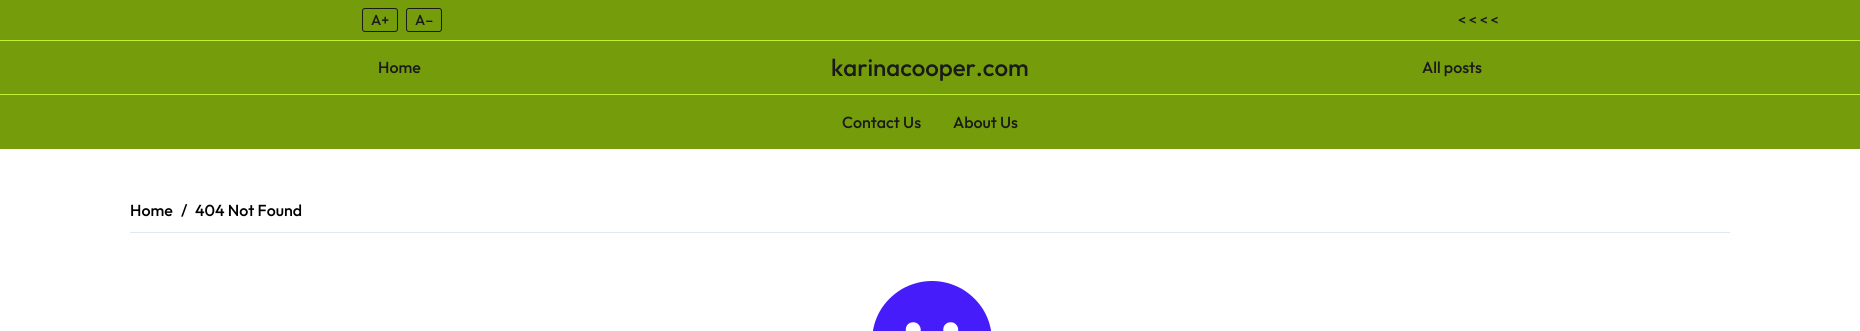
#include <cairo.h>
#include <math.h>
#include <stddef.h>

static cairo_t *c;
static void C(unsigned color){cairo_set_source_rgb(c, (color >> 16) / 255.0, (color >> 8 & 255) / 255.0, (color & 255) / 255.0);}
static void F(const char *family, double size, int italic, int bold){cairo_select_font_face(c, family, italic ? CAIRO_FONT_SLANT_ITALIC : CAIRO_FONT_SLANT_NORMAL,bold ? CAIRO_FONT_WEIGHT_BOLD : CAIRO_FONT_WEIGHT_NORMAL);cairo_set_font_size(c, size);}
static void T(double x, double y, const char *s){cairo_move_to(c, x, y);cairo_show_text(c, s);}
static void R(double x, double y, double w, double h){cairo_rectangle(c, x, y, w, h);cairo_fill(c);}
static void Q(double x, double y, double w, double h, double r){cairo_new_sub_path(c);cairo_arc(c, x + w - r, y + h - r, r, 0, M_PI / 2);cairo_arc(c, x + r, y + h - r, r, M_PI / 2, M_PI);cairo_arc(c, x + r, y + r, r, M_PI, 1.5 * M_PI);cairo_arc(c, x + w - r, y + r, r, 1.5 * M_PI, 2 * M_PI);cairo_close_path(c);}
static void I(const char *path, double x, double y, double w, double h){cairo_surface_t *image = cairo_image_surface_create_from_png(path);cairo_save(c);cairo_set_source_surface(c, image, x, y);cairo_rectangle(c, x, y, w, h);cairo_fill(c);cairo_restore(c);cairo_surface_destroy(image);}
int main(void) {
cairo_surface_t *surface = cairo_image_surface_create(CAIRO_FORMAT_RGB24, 1860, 331);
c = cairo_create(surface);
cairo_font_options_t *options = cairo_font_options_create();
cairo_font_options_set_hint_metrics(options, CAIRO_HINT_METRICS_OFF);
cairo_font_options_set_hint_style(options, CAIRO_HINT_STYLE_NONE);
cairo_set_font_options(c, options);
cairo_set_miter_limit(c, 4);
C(0xffffff);
cairo_paint(c);
C(0x759c0b);
R(0,0,1860,40);
Q(362.5,8.5,35,23,2.5);
C(0x1a1a1a);
cairo_set_line_width(c,1);
cairo_stroke(c);
F("Outfit Medium",14.5,0,0);
T(371,25,"A+");
Q(406.5,8.5,35,23,2.5);
cairo_stroke(c);
T(415,25,"A–");
T(1458,25,"< < < <");
C(0xbef037);
R(0,40,1860,1);
C(0x759c0b);
R(0,41,1860,53);
C(0xbef037);
R(0,94,1860,1);
F("Outfit Medium",16,0,0);
C(0x1a1a1a);
T(378,73,"Home");
F("Outfit Medium",24,0,0);
T(831,76,"karinacooper.com");
F("Outfit Medium",16,0,0);
T(1422,73,"All posts");
C(0x759c0b);
R(0,95,1860,54);
C(0x1a1a1a);
T(842,128,"Contact Us");
T(953,128,"About Us");
C(0xe2e8f0);
R(130,232,1600,1);
C(0x000000);
T(130,216,"Home");
T(181,216,"/");
T(195,216,"404 Not Found");
I("1.png",873,281,119,50);
cairo_surface_write_to_png(surface, "o.png");
cairo_font_options_destroy(options);
cairo_destroy(c);
cairo_surface_destroy(surface);
return 0;
}
